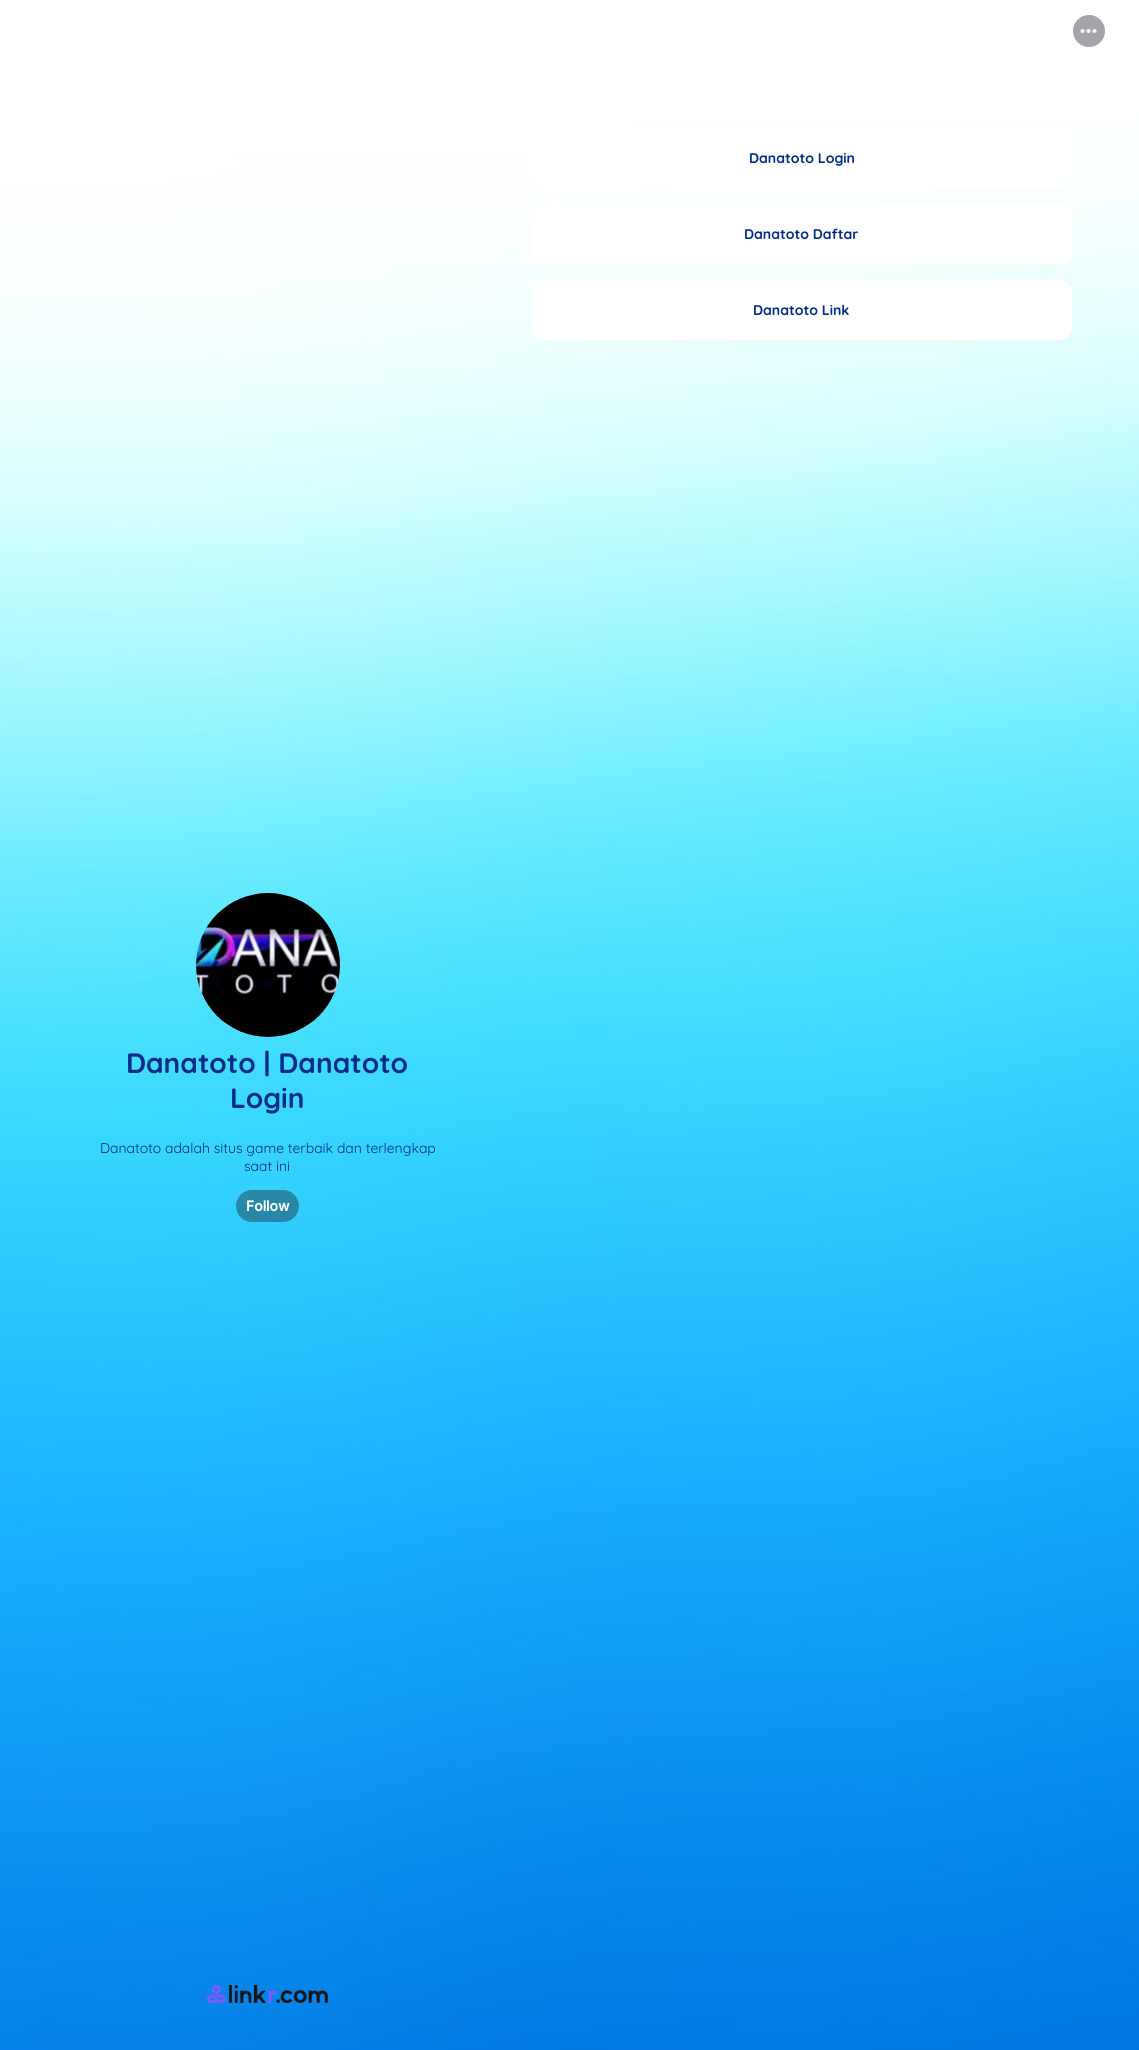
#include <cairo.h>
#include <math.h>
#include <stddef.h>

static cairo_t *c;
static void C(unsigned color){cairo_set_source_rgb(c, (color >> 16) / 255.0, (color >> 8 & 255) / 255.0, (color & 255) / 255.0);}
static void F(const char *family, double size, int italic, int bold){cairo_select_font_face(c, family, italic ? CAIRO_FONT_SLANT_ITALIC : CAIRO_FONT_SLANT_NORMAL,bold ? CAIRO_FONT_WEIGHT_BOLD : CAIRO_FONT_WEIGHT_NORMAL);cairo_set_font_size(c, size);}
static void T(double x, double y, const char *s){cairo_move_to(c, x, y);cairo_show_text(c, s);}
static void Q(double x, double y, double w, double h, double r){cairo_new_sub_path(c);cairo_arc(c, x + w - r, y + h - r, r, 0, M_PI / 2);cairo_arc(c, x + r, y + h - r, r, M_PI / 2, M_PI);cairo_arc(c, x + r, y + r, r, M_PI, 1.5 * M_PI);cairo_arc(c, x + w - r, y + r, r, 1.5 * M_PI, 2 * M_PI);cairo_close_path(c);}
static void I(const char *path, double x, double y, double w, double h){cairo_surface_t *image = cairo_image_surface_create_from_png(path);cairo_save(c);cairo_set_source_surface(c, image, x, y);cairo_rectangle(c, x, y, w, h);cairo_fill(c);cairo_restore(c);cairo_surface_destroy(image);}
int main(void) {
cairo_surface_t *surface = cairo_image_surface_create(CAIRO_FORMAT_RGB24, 1139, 2050);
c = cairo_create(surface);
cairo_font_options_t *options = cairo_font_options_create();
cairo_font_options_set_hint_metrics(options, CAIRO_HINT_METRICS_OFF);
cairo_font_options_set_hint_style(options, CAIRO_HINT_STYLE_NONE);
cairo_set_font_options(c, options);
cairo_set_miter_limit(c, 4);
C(0xffffff);
cairo_paint(c);
I("1.png",0,121,1139,1929);
C(0xffffff);
Q(532,128,540,60,12);
cairo_fill(c);
F("Quicksand",14,0,1);
C(0x012b8a);
T(749,163,"Danatoto Login");
C(0xffffff);
Q(532,204,540,60,12);
cairo_fill(c);
C(0x012b8a);
T(744,239,"Danatoto Daftar");
C(0xffffff);
Q(532,280,540,60,12);
cairo_fill(c);
C(0x012b8a);
T(753,315,"Danatoto Link");
C(0xa4a5a8);
cairo_new_path(c);
cairo_arc(c,1089,31,16,0,2 * M_PI);
cairo_fill(c);
I("2.png",1080,29,17,4);
I("3.png",196,893,144,144);
F("Quicksand",28,0,1);
C(0x012b8a);
T(126,1073,"Danatoto | Danatoto");
T(230,1108,"Login");
F("Quicksand",14,0,0);
T(100,1153,"Danatoto adalah situs game terbaik dan terlengkap");
T(244,1171,"saat ini");
cairo_set_source_rgba(c,0.106,0.118,0.145,0.4);
Q(236,1190,63,32,16);
cairo_fill(c);
F("Inter",14,0,1);
C(0xffffff);
T(246,1211,"Follow");
I("4.png",207,1985,121,18);
cairo_surface_write_to_png(surface, "o.png");
cairo_font_options_destroy(options);
cairo_destroy(c);
cairo_surface_destroy(surface);
return 0;
}
